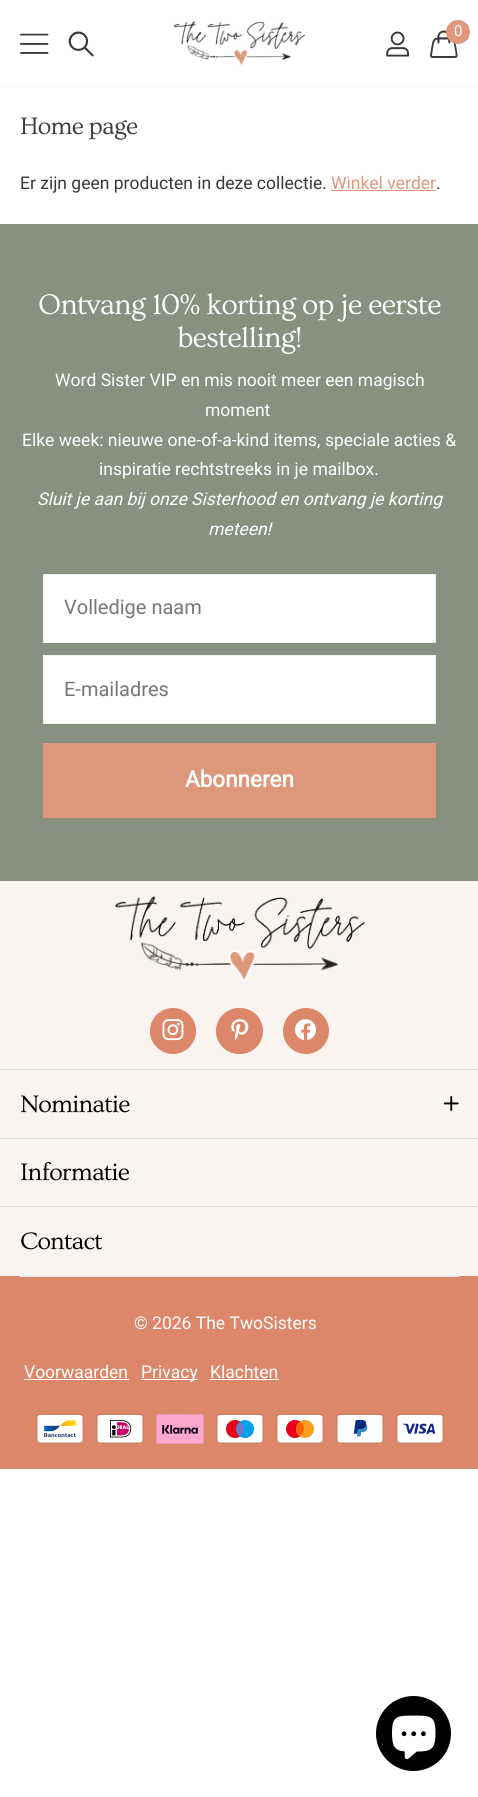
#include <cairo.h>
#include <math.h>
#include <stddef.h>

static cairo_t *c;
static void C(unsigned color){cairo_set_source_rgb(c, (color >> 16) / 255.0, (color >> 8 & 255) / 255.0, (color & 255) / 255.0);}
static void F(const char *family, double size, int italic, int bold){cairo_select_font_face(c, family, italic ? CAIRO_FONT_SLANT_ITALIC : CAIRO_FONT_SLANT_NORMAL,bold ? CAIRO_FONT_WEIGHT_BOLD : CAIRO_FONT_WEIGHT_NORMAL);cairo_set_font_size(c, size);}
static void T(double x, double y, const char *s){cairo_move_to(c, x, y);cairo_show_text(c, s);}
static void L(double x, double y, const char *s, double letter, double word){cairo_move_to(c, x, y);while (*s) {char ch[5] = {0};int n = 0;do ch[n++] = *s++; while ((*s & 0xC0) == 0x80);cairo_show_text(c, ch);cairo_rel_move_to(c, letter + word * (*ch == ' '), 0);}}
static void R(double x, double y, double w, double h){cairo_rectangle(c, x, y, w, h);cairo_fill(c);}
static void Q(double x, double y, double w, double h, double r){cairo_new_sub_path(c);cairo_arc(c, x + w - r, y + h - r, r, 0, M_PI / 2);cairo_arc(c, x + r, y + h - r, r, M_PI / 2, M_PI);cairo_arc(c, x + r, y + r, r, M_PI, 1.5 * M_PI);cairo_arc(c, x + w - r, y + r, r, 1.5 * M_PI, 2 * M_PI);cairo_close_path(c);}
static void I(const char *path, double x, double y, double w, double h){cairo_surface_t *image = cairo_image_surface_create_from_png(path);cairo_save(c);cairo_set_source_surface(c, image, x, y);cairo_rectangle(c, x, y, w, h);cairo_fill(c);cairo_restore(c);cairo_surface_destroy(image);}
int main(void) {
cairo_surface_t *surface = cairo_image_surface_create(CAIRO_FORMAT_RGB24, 478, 1797);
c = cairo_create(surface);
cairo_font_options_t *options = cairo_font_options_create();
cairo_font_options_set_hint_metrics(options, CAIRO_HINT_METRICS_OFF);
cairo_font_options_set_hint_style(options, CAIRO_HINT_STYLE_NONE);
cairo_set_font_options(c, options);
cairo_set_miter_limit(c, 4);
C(0xffffff);
cairo_paint(c);
I("1.png",20,33,29,21);
I("2.png",68,31,26,26);
I("3.png",173,21,132,44);
I("4.png",386,31,24,26);
I("5.png",430,30,28,28);
C(0xe1977e);
cairo_arc(c,458,32,12,0,2 * M_PI);
cairo_fill(c);
F("Roboto",15,0,0);
C(0xffffff);
T(454,36,"0");
C(0xf8f8f8);
R(0,86,478,1);
F("Ovo",25,0,0);
C(0x393939);
L(20,134,"Home page",-.75,0);
F("Roboto",17.5,0,0);
T(20,189,"Er zijn geen producten in deze collectie.");
C(0xe1977e);
T(331,189,"Winkel verder");
R(331,190,105,1);
C(0x393939);
T(436,189,".");
C(0x87917d);
R(0,224,478,657);
F("Ovo",30,0,0);
C(0xffffff);
L(38,314,"Ontvang 10% korting op je eerste",-.9,0);
L(177,347,"bestelling!",-.9,0);
F("Roboto",17.5,0,0);
T(55,386,"Word Sister VIP en mis nooit meer een magisch");
T(205,416,"moment");
T(22,446,"Elke week: nieuwe one-of-a-kind items, speciale acties &");
T(99,475,"inspiratie rechtstreeks in je mailbox.");
F("Roboto",17.5,1,0);
T(37,505,"Sluit je aan bij onze Sisterhood en ontvang je korting");
T(208,535,"meteen!");
C(0x889180);
R(24,568,431,268);
C(0xffffff);
cairo_rectangle(c,43.5,574.5,392,68);
cairo_fill_preserve(c);
C(0xf3f1ef);
cairo_set_line_width(c,1);
cairo_stroke(c);
F("Roboto",20,0,0);
C(0x767676);
T(64,614,"Volledige naam");
C(0xffffff);
cairo_rectangle(c,43.5,655.5,392,68);
cairo_fill_preserve(c);
C(0xf3f1ef);
cairo_stroke(c);
C(0x767676);
T(64,696,"E-mailadres");
C(0xdd987b);
R(43,743,393,75);
F("Roboto",22.5,0,1);
C(0xffffff);
T(185,787,"Abonneren");
C(0xfaf4f1);
R(0,881,478,395);
I("6.png",115,896,250,86);
C(0xdc876a);
cairo_arc(c,173,1031,22.5,0,2 * M_PI);
cairo_fill_preserve(c);
cairo_stroke(c);
I("7.png",162,1019,22,22);
Q(216.5,1008.5,46,45,22.5);
cairo_fill_preserve(c);
cairo_stroke(c);
I("8.png",231,1019,18,22);
cairo_arc(c,306,1031,22.5,0,2 * M_PI);
cairo_fill_preserve(c);
cairo_stroke(c);
I("9.png",295,1019,21,22);
C(0xe1dcd9);
R(0,1069,478,1);
F("Ovo",25,0,0);
C(0x000000);
L(20,1112,"Nominatie",-.75,0);
I("10.png",443,1096,16,15);
C(0xe1dcd9);
R(0,1138,478,1);
C(0x000000);
L(20,1180,"Informatie",-.75,0);
C(0xe1dcd9);
R(0,1206,478,1);
C(0x000000);
L(20,1249,"Contact",-.75,0);
C(0xdc876a);
R(0,1276,478,193);
C(0xececec);
R(20,1276,439,1);
F("Roboto",17.5,0,0);
C(0xffffff);
T(134,1329,"© 2026 The TwoSisters");
T(24,1378,"Voorwaarden");
R(24,1379,105,1);
R(141,1379,57,1);
T(141,1378,"Privacy");
T(210,1378,"Klachten");
R(210,1379,69,1);
I("11.png",36,1414,48,30);
I("12.png",96,1414,48,30);
I("13.png",156,1414,48,30);
I("14.png",216,1414,48,30);
I("15.png",276,1414,48,30);
I("16.png",336,1414,48,30);
I("17.png",396,1414,48,30);
C(0x000000);
cairo_arc(c,413.5,1733.5,37.5,0,2 * M_PI);
cairo_fill(c);
I("18.png",392,1715,44,45);
cairo_surface_write_to_png(surface, "o.png");
cairo_font_options_destroy(options);
cairo_destroy(c);
cairo_surface_destroy(surface);
return 0;
}
